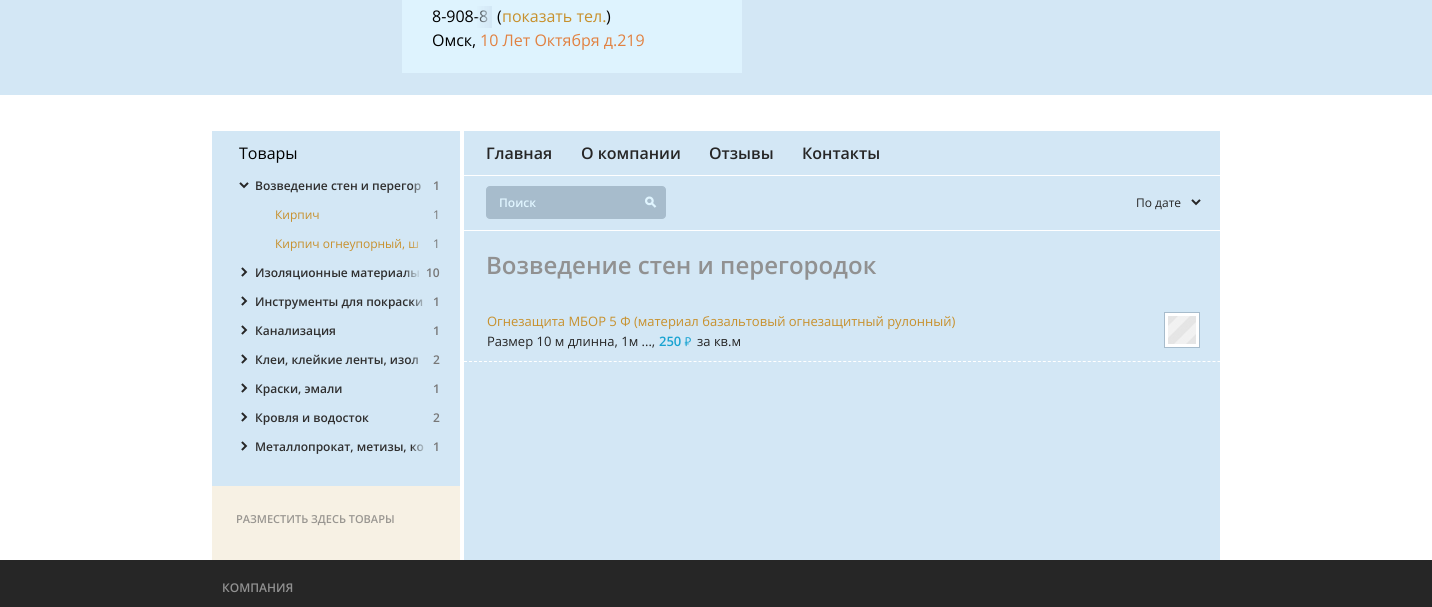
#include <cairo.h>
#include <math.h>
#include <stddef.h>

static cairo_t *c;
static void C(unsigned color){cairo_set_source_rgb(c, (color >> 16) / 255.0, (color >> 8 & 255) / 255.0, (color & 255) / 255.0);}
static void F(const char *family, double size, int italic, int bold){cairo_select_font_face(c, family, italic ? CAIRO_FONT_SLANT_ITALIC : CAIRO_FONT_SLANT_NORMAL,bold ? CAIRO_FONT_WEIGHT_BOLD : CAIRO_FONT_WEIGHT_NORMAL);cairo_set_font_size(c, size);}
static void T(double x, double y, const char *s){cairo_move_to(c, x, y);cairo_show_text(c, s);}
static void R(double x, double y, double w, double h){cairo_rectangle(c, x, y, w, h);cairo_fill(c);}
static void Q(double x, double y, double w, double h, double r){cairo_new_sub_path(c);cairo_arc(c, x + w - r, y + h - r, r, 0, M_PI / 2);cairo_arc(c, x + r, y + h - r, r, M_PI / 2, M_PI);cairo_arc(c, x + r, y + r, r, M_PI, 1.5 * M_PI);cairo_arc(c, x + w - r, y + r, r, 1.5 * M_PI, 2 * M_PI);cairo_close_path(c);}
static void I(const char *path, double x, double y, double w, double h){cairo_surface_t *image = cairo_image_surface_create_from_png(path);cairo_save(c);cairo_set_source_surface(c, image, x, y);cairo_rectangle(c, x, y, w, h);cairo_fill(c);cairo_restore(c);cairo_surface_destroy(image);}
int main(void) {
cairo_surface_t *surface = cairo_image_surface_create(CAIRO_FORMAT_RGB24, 1432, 607);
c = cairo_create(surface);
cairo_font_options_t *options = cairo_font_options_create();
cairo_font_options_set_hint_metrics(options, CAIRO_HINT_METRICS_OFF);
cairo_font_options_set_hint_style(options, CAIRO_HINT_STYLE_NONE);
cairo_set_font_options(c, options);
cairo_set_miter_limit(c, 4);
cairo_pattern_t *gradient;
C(0xffffff);
cairo_paint(c);
C(0xd3e7f5);
R(0,0,1432,95);
C(0xdef3fe);
R(402,0,340,73);
F("Open Sans",16,0,0);
C(0x000000);
T(432,22,"8-908-8");
gradient = cairo_pattern_create_linear(477,17,492,17);
cairo_pattern_add_color_stop_rgba(gradient,0,0.835,0.91,0.961,.2);
cairo_pattern_add_color_stop_rgba(gradient,1,0.827,0.906,0.961,1);
cairo_set_source(c,gradient);
cairo_pattern_destroy(gradient);
R(477,6,15,22);
C(0x000000);
T(497,22,"(");
C(0xc7902c);
T(502,22,"показать тел.");
C(0x000000);
T(606,22,")");
T(432,46,"Омск,");
C(0xe18141);
T(480,46,"10 Лет Октября д.219");
C(0xf7f1e4);
R(212,486,248,74);
C(0xd3e7f5);
R(212,131,248,355);
C(0x000000);
T(239,159,"Товары");
I("1.png",239,182,10,7);
F("Open Sans SemiBold",12,0,0);
C(0x303030);
T(255,190,"Возведение стен и перегор");
gradient = cairo_pattern_create_linear(413,186,428,186);
cairo_pattern_add_color_stop_rgba(gradient,0,0.835,0.91,0.961,.2);
cairo_pattern_add_color_stop_rgba(gradient,1,0.827,0.906,0.961,1);
cairo_set_source(c,gradient);
cairo_pattern_destroy(gradient);
R(413,183,8,10);
C(0x777777);
T(433,190,"1");
F("Open Sans",12,0,0);
C(0xc7902c);
T(275,219,"Кирпич");
C(0x777777);
T(433,219,"1");
C(0xc7902c);
T(275,248,"Кирпич огнеупорный, ш");
gradient = cairo_pattern_create_linear(413,244,428,244);
cairo_pattern_add_color_stop_rgba(gradient,0,0.835,0.91,0.961,.2);
cairo_pattern_add_color_stop_rgba(gradient,1,0.827,0.906,0.961,1);
cairo_set_source(c,gradient);
cairo_pattern_destroy(gradient);
R(413,241,5,7);
C(0x777777);
T(433,248,"1");
I("2.png",241,267,7,10);
F("Open Sans SemiBold",12,0,0);
C(0x303030);
T(255,277,"Изоляционные материалы");
gradient = cairo_pattern_create_linear(406,273,421,273);
cairo_pattern_add_color_stop_rgba(gradient,0,0.835,0.91,0.961,.2);
cairo_pattern_add_color_stop_rgba(gradient,1,0.827,0.906,0.961,1);
cairo_set_source(c,gradient);
cairo_pattern_destroy(gradient);
R(406,270,13,7);
C(0x777777);
T(426,277,"10");
I("2.png",241,296,7,10);
C(0x303030);
T(255,306,"Инструменты для покраски");
gradient = cairo_pattern_create_linear(413,302,428,302);
cairo_pattern_add_color_stop_rgba(gradient,0,0.835,0.91,0.961,.2);
cairo_pattern_add_color_stop_rgba(gradient,1,0.827,0.906,0.961,1);
cairo_set_source(c,gradient);
cairo_pattern_destroy(gradient);
R(413,299,10,7);
C(0x777777);
T(433,306,"1");
I("2.png",241,325,7,10);
C(0x303030);
T(255,335,"Канализация");
C(0x777777);
T(433,335,"1");
I("2.png",241,354,7,10);
C(0x303030);
T(255,364,"Клеи, клейкие ленты, изол");
gradient = cairo_pattern_create_linear(413,360,428,360);
cairo_pattern_add_color_stop_rgba(gradient,0,0.835,0.91,0.961,.2);
cairo_pattern_add_color_stop_rgba(gradient,1,0.827,0.906,0.961,1);
cairo_set_source(c,gradient);
cairo_pattern_destroy(gradient);
R(413,357,5,7);
C(0x777777);
T(433,364,"2");
I("2.png",241,383,7,10);
C(0x303030);
T(255,393,"Краски, эмали");
C(0x777777);
T(433,393,"1");
I("2.png",241,412,7,10);
C(0x303030);
T(255,422,"Кровля и водосток");
C(0x777777);
T(433,422,"2");
I("2.png",241,441,7,10);
C(0x303030);
T(255,451,"Металлопрокат, метизы, ко");
gradient = cairo_pattern_create_linear(413,447,428,447);
cairo_pattern_add_color_stop_rgba(gradient,0,0.835,0.91,0.961,.2);
cairo_pattern_add_color_stop_rgba(gradient,1,0.827,0.906,0.961,1);
cairo_set_source(c,gradient);
cairo_pattern_destroy(gradient);
R(413,444,11,8);
C(0x777777);
T(433,451,"1");
F("Open Sans SemiBold",11,0,0);
C(0x999691);
T(236,523,"РАЗМЕСТИТЬ ЗДЕСЬ ТОВАРЫ");
C(0xd3e7f5);
R(464,131,756,429);
C(0xffffff);
R(464,175,756,1);
F("Open Sans SemiBold",16,0,0);
C(0x262626);
T(486,159,"Главная");
T(581,159,"О компании");
T(709,159,"Отзывы");
T(802,159,"Контакты");
C(0xffffff);
R(464,230,756,1);
C(0xa7bccc);
Q(486.5,186.5,179,32,3.5);
cairo_fill_preserve(c);
cairo_set_line_width(c,1);
cairo_stroke(c);
F("Open Sans SemiBold",12,0,0);
C(0xe0f5ff);
T(499,207,"Поиск");
I("3.png",645,196,12,12);
F("Open Sans",12,0,0);
C(0x262626);
T(1136,207,"По дате");
I("1.png",1191,199,10,7);
F("Open Sans SemiBold",24,0,0);
C(0x919191);
T(486,274,"Возведение стен и перегородок");
cairo_new_path(c);
cairo_move_to(c,464,361.5);
cairo_line_to(c,1220,361.5);
C(0xffffff);
cairo_set_dash(c,(double[]){3,1.99},2,0);
cairo_stroke(c);
F("Open Sans",13,0,0);
C(0xc7902c);
T(487,326,"Огнезащита МБОР 5 Ф (материал базальтовый огнезащитный рулонный)");
C(0x262626);
T(487,346,"Размер 10 м длинна, 1м ...,");
F("Open Sans SemiBold",13,0,0);
C(0x18a3d1);
T(659,346,"250");
I("4.png",684,337,7,10);
F("Open Sans",13,0,0);
C(0x262626);
T(697,346,"за кв.м");
C(0xffffff);
cairo_rectangle(c,1164.5,312.5,35,35);
cairo_fill_preserve(c);
C(0xa7bccc);
cairo_set_dash(c,NULL,0,0);
cairo_stroke(c);
I("5.png",1168,316,28,28);
C(0x262626);
R(0,560,1432,47);
F("Open Sans SemiBold",12,0,0);
C(0x919191);
T(222,592,"КОМПАНИЯ");
cairo_surface_write_to_png(surface, "o.png");
cairo_font_options_destroy(options);
cairo_destroy(c);
cairo_surface_destroy(surface);
return 0;
}
